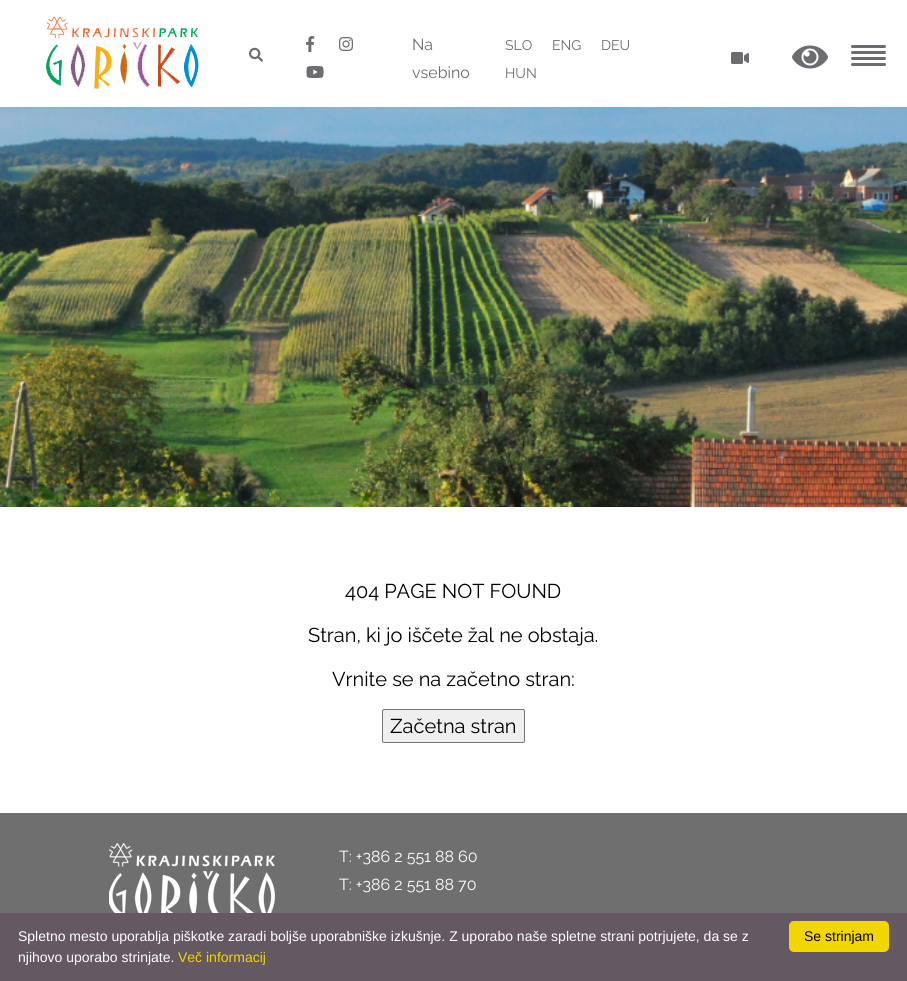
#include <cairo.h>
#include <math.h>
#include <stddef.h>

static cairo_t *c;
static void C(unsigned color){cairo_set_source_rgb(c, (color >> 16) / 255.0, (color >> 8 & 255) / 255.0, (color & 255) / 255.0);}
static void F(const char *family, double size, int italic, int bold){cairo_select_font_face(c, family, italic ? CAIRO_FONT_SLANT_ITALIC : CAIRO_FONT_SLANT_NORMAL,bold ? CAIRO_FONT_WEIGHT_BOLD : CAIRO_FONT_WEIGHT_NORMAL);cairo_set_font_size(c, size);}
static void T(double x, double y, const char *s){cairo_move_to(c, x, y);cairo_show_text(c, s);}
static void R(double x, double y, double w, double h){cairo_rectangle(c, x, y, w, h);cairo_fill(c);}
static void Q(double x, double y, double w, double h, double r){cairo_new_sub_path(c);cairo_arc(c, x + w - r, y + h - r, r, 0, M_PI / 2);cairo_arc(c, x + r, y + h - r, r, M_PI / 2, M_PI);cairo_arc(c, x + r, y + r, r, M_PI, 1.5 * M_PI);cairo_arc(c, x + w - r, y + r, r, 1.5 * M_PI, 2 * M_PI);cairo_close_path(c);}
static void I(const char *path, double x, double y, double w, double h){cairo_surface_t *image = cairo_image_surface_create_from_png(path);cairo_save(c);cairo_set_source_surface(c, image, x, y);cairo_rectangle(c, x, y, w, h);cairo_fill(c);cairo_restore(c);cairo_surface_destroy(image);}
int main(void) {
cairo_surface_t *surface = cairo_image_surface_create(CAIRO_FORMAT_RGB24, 907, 981);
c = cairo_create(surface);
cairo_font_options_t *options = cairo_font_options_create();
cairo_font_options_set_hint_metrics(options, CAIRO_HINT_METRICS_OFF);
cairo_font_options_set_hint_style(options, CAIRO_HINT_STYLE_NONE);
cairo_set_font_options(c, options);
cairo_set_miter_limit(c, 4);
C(0xffffff);
cairo_paint(c);
I("1.png",46,17,153,72);
I("2.png",249,47,14,15);
I("3.png",306,36,9,16);
I("4.png",339,37,14,14);
I("5.png",306,66,18,12);
F("Raleway",16,0,0);
C(0x6c6d70);
T(412,50,"Na");
T(412,78,"vsebino");
F("Raleway",14,0,0);
T(505,50,"SLO");
T(552,50,"ENG");
T(601,50,"DEU");
T(505,78,"HUN");
I("6.png",731,52,18,12);
I("7.png",792,45,36,24);
Q(851,45,35,3,1.5);
cairo_fill(c);
Q(851,51,35,3,1.5);
cairo_fill(c);
Q(851,57,35,3,1.5);
cairo_fill(c);
Q(851,63,35,3,1.5);
cairo_fill(c);
I("8.png",0,107,907,400);
F("Raleway",20,0,0);
C(0x000000);
T(345,598,"404 PAGE NOT FOUND");
T(308,642,"Stran, ki jo iščete žal ne obstaja.");
T(332,686,"Vrnite se na začetno stran:");
C(0xefefef);
Q(382.5,709.5,142,33,1.5);
cairo_fill_preserve(c);
C(0x767676);
cairo_set_line_width(c,1);
cairo_stroke(c);
C(0x000000);
T(390,733,"Začetna stran");
C(0x6e6f6e);
R(0,813,907,100);
I("9.png",109,843,166,70);
F("Raleway",16,0,0);
C(0xffffff);
T(339,862,"T: +386 2 551 88 60");
T(339,890,"T: +386 2 551 88 70");
C(0x645862);
R(0,913,907,68);
F("Liberation Sans",14,0,0);
C(0xffffff);
T(18,941,"Spletno mesto uporablja piškotke zaradi boljše uporabniške izkušnje. Z uporabo naše spletne strani potrjujete, da se z");
T(18,962,"njihovo uporabo strinjate.");
C(0xf1d600);
T(178,962,"Več informacij");
Q(789,921,100,31,5);
cairo_fill(c);
C(0x000000);
T(804,941,"Se strinjam");
cairo_surface_write_to_png(surface, "o.png");
cairo_font_options_destroy(options);
cairo_destroy(c);
cairo_surface_destroy(surface);
return 0;
}
